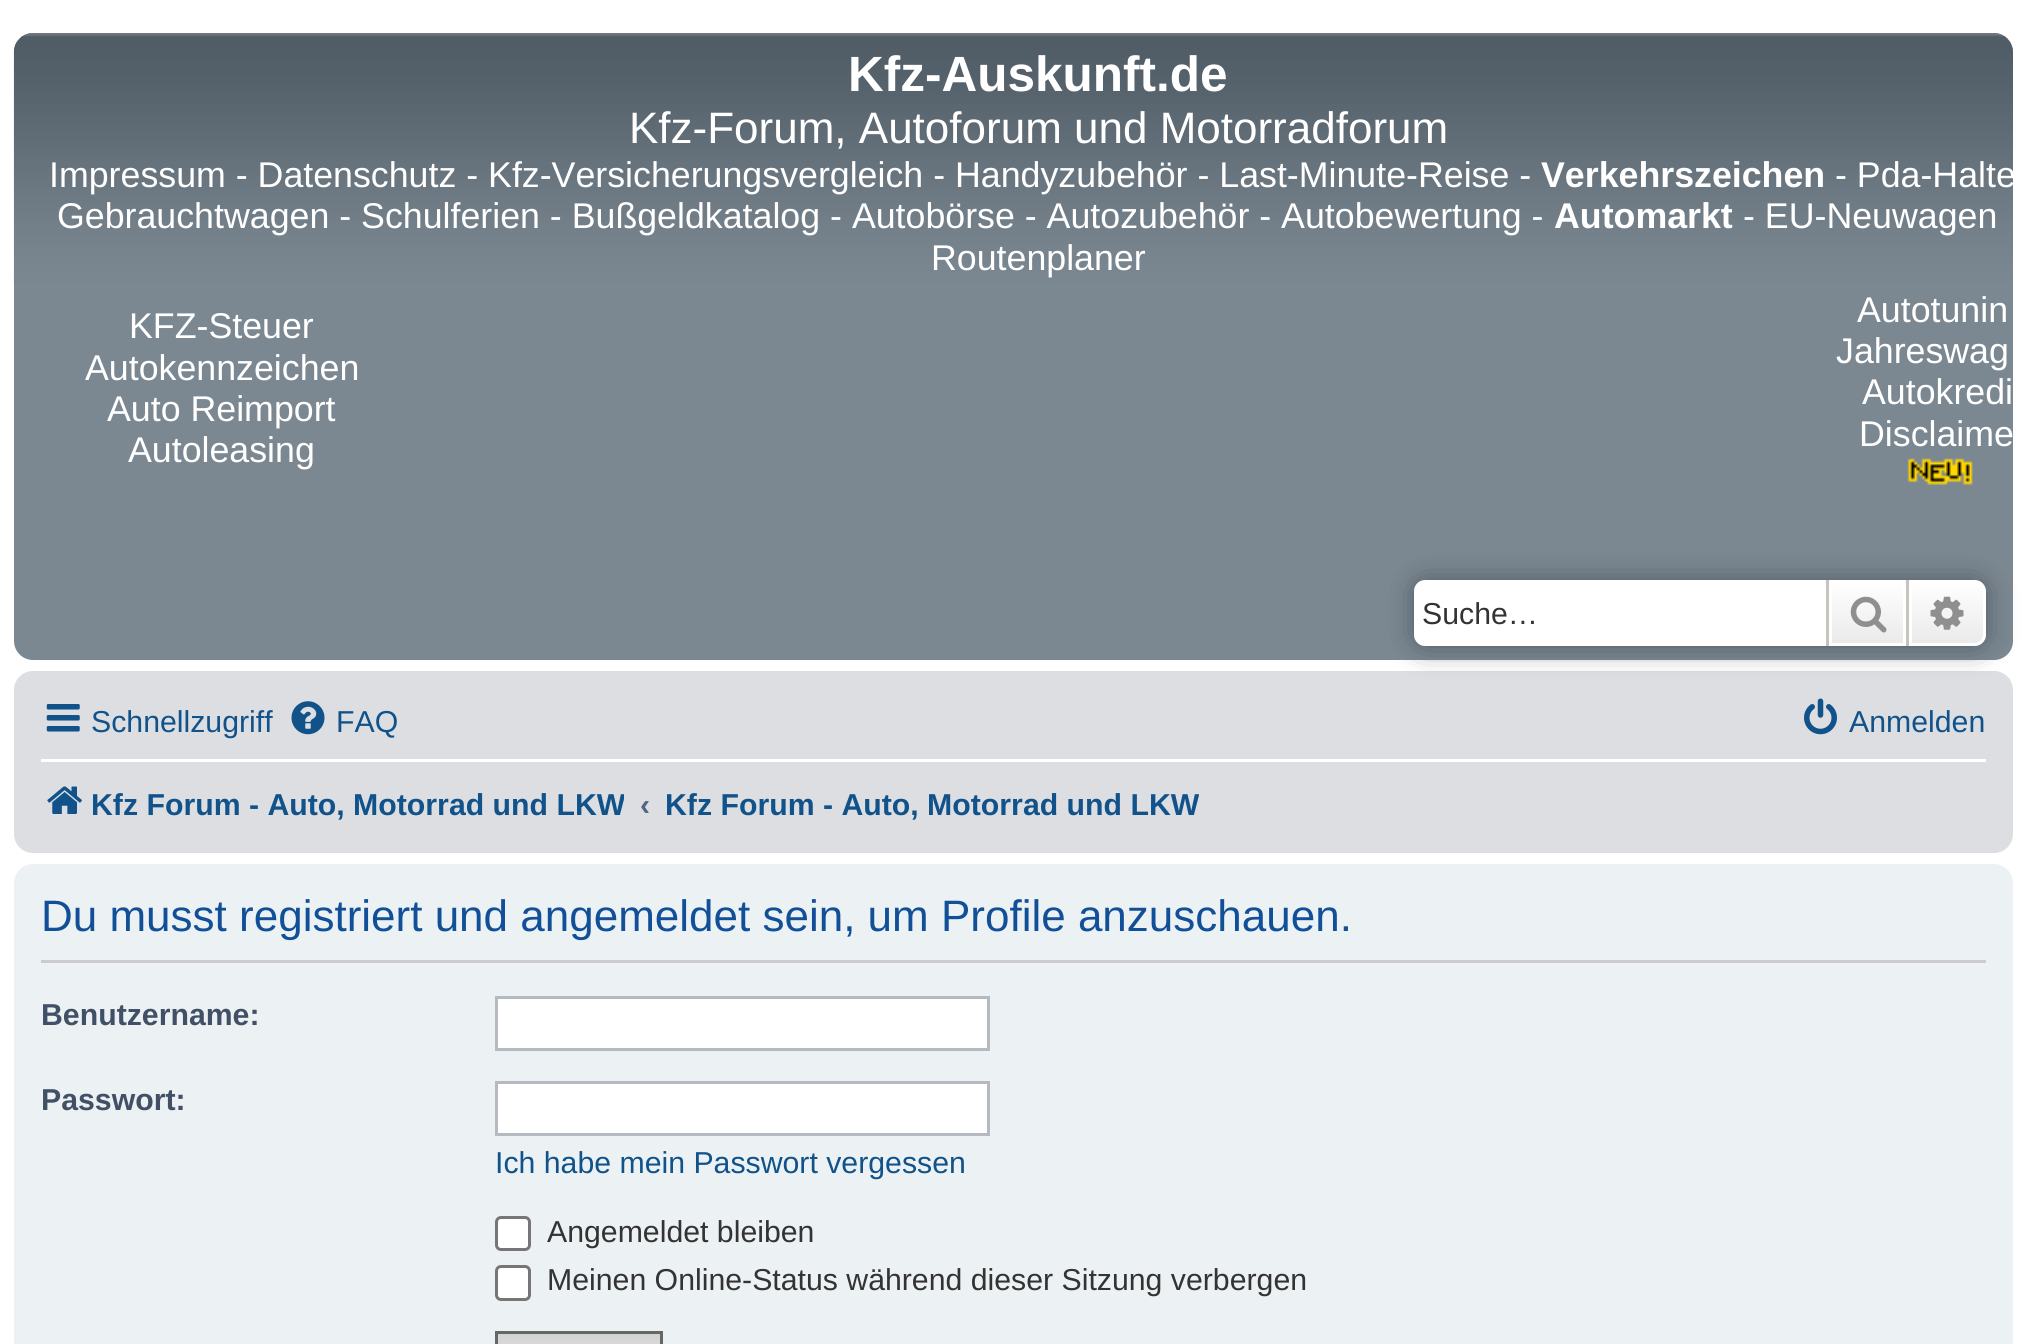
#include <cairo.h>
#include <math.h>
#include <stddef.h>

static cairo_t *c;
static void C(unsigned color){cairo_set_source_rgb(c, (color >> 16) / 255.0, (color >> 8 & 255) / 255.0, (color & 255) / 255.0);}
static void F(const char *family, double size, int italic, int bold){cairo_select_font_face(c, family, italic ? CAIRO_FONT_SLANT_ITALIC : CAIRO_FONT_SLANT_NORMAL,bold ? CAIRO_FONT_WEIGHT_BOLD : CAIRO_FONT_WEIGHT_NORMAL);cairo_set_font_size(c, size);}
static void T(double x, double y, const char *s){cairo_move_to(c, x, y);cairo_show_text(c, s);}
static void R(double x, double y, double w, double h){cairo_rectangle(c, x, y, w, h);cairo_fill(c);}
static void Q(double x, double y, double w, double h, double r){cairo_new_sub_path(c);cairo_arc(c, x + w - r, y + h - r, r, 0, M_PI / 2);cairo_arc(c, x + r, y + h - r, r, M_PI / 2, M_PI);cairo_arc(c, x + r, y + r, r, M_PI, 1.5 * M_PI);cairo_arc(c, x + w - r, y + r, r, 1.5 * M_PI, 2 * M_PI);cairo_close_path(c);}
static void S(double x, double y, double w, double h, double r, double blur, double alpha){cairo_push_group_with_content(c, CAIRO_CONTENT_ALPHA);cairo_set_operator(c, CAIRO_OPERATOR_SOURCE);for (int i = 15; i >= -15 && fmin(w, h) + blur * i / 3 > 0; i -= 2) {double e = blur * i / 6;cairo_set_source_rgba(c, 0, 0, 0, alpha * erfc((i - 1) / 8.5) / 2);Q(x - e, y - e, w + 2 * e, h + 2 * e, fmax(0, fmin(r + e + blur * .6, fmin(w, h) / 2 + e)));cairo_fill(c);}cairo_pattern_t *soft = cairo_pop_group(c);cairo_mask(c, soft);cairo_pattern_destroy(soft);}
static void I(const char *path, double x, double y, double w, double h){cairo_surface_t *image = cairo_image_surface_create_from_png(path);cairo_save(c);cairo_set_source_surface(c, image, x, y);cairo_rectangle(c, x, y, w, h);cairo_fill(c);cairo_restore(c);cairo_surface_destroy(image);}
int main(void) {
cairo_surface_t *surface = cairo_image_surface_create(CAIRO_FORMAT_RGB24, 2025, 1344);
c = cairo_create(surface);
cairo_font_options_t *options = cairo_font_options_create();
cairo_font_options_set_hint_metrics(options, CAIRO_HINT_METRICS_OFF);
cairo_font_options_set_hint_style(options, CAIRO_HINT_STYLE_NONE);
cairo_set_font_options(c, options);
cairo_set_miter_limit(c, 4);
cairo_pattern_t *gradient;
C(0xffffff);
cairo_paint(c);
C(0x7c8891);
Q(14,33,1999,627,19);
cairo_fill(c);
I("1.png",13,33,2000,253);
F("Liberation Sans",49.5,0,1);
C(0xffffff);
T(848,91,"Kfz-Auskunft.de");
F("Liberation Sans",44,0,0);
T(629,143,"Kfz-Forum, Autoforum und Motorradforum");
F("Liberation Sans",35.75,0,0);
T(49,187,"Impressum - Datenschutz - Kfz-Versicherungsvergleich - Handyzubehör - Last-Minute-Reise -");
F("Liberation Sans",35.75,0,1);
T(1541,187,"Verkehrszeichen");
F("Liberation Sans",35.75,0,0);
T(1835,187,"- Pda-Halte");
T(57,228,"Gebrauchtwagen - Schulferien - Bußgeldkatalog - Autobörse - Autozubehör - Autobewertung -");
F("Liberation Sans",35.75,0,1);
T(1554,228,"Automarkt");
F("Liberation Sans",35.75,0,0);
T(1743,228,"- EU-Neuwagen");
T(931,270,"Routenplaner");
T(129,338,"KFZ-Steuer");
T(85,380,"Autokennzeichen");
T(107,421,"Auto Reimport");
T(128,462,"Autoleasing");
T(1857,322,"Autotunin");
T(1836,363,"Jahreswag");
T(1862,404,"Autokredi");
T(1859,446,"Disclaime");
I("2.png",1907,458,66,27);
C(0xdcdee2);
Q(14,671,1999,182,19);
cairo_fill(c);
C(0x505c65);
S(1414,580,572,66,11,14,1);
C(0xffffff);
cairo_new_path(c);
cairo_move_to(c,1425,580);
cairo_line_to(c,1826,580);
cairo_line_to(c,1826,646);
cairo_line_to(c,1425,646);
cairo_curve_to(c,1419,646,1414,641,1414,635);
cairo_line_to(c,1414,591);
cairo_curve_to(c,1414,585,1419,580,1425,580);
cairo_close_path(c);
cairo_fill(c);
F("Liberation Sans",30.25,0,0);
C(0x333333);
T(1422,624,"Suche…");
gradient = cairo_pattern_create_linear(1867,580,1867,646);
cairo_pattern_add_color_stop_rgba(gradient,0,1,1,1,1);
cairo_pattern_add_color_stop_rgba(gradient,1,0.914,0.914,0.914,1);
cairo_set_source(c,gradient);
cairo_pattern_destroy(gradient);
R(1832,583,71,60);
cairo_rectangle(c,1830.5,581.5,74,63);
C(0xffffff);
cairo_set_line_width(c,3);
cairo_stroke(c);
C(0xc7c3bf);
R(1906,580,3,66);
R(1826,580,3,66);
I("3.png",1850,596,37,37);
gradient = cairo_pattern_create_linear(1947,580,1947,646);
cairo_pattern_add_color_stop_rgba(gradient,0,1,1,1,1);
cairo_pattern_add_color_stop_rgba(gradient,1,0.914,0.914,0.914,1);
cairo_set_source(c,gradient);
cairo_pattern_destroy(gradient);
cairo_new_path(c);
cairo_move_to(c,1910.5,581.5);
cairo_line_to(c,1975,581.5);
cairo_curve_to(c,1980,581.5,1984.5,586,1984.5,591);
cairo_line_to(c,1984.5,635);
cairo_curve_to(c,1984.5,640,1980,644.5,1975,644.5);
cairo_line_to(c,1910.5,644.5);
cairo_close_path(c);
cairo_fill_preserve(c);
C(0xffffff);
cairo_stroke(c);
I("4.png",1930,596,34,34);
I("5.png",46,704,34,28);
C(0x105289);
T(91,732,"Schnellzugriff");
I("6.png",291,701,34,34);
T(336,732,"FAQ");
I("7.png",1804,698,33,37);
T(1849,732,"Anmelden");
C(0xffffff);
R(41,759,1945,3);
I("8.png",47,786,35,28);
cairo_save(c);
cairo_rectangle(c,41,770,583,69);
cairo_clip(c);
F("Liberation Sans",30.25,0,1);
C(0x105289);
T(91,815,"Kfz Forum - Auto, Motorrad und LKW");
cairo_restore(c);
F("Liberation Sans",30.25,0,1);
C(0x536482);
T(640,815,"‹");
cairo_save(c);
cairo_rectangle(c,666,770,533,69);
cairo_clip(c);
C(0x105289);
T(665,815,"Kfz Forum - Auto, Motorrad und LKW");
cairo_restore(c);
C(0xecf1f3);
Q(14,864,1999,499,19);
cairo_fill(c);
C(0xcccccc);
R(41,960,1945,3);
F("Liberation Sans",44,0,0);
C(0x115098);
T(41,931,"Du musst registriert und angemeldet sein, um Profile anzuschauen.");
F("Liberation Sans",30.25,0,1);
C(0x425067);
T(41,1025,"Benutzername:");
C(0xffffff);
cairo_rectangle(c,496.5,997.5,492,52);
cairo_fill_preserve(c);
C(0xb4bac0);
cairo_stroke(c);
C(0x425067);
T(41,1110,"Passwort:");
C(0xffffff);
cairo_rectangle(c,496.5,1082.5,492,52);
cairo_fill_preserve(c);
C(0xb4bac0);
cairo_stroke(c);
F("Liberation Sans",30.25,0,0);
C(0x105289);
T(495,1173,"Ich habe mein Passwort vergessen");
C(0xffffff);
Q(496.5,1217.5,33,32,4.5);
cairo_fill_preserve(c);
C(0x767676);
cairo_stroke(c);
C(0x333333);
T(547,1242,"Angemeldet bleiben");
C(0xffffff);
Q(496.5,1266.5,33,33,4.5);
cairo_fill_preserve(c);
C(0x767676);
cairo_stroke(c);
C(0x333333);
T(547,1290,"Meinen Online-Status während dieser Sitzung verbergen");
gradient = cairo_pattern_create_linear(579,1334,579,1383);
cairo_pattern_add_color_stop_rgba(gradient,0,0.824,0.824,0.824,1);
cairo_pattern_add_color_stop_rgba(gradient,1,0.937,0.937,0.937,1);
cairo_set_source(c,gradient);
cairo_pattern_destroy(gradient);
R(498,1334,162,10);
cairo_rectangle(c,496.5,1332.5,165,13);
C(0x666666);
cairo_stroke(c);
cairo_surface_write_to_png(surface, "o.png");
cairo_font_options_destroy(options);
cairo_destroy(c);
cairo_surface_destroy(surface);
return 0;
}
